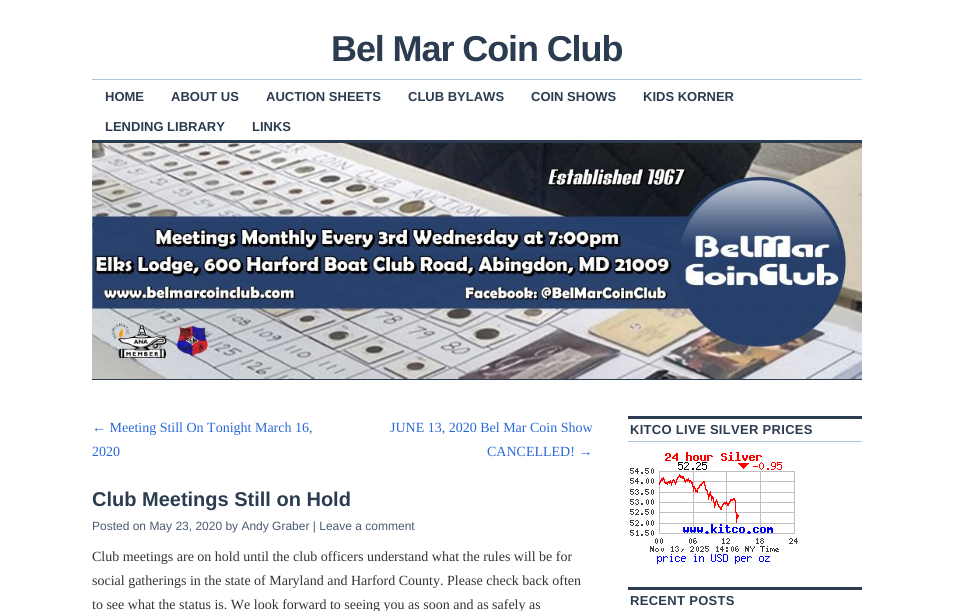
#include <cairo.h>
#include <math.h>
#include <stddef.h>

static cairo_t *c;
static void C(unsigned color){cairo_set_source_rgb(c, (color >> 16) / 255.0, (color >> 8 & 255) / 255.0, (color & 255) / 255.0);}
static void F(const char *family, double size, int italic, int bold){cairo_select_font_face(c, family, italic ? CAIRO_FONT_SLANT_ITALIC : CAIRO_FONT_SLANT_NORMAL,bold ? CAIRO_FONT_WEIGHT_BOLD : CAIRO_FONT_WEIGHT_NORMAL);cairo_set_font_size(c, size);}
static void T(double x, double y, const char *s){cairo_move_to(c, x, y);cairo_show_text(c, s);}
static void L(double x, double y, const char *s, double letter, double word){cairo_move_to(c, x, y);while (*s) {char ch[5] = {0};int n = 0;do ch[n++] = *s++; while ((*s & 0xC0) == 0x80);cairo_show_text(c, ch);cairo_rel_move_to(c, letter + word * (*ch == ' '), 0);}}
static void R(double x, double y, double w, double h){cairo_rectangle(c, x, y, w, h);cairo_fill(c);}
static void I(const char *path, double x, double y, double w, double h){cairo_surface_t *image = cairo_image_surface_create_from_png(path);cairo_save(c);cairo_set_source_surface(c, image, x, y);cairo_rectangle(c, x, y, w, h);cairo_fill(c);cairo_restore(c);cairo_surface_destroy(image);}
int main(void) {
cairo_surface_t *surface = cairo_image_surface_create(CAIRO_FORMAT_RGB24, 954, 611);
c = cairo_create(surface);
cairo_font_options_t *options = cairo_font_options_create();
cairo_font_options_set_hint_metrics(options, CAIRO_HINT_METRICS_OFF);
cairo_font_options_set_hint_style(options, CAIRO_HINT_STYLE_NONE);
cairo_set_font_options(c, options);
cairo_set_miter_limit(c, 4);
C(0xffffff);
cairo_paint(c);
F("Liberation Sans",36,0,1);
C(0x2c3c50);
L(331,61,"Bel Mar Coin Club",-1.1,0);
C(0xb2c3de);
R(92,79,770,1);
F("Liberation Sans",13,0,1);
C(0x2c3c50);
T(105,101,"HOME");
T(171,101,"ABOUT US");
T(266,101,"AUCTION SHEETS");
T(408,101,"CLUB BYLAWS");
T(531,101,"COIN SHOWS");
T(643,101,"KIDS KORNER");
T(105,131,"LENDING LIBRARY");
T(252,131,"LINKS");
R(92,140,770,3);
I("1.png",92,143,770,236);
R(92,379,770,1);
F("Liberation Serif",14,0,0);
C(0x2869d6);
T(92,432,"← Meeting Still On Tonight March 16,");
T(92,456,"2020");
T(390,432,"JUNE 13, 2020 Bel Mar Coin Show");
T(487,456,"CANCELLED! →");
F("Liberation Sans",20,0,1);
C(0x2c3c50);
T(92,506,"Club Meetings Still on Hold");
F("Liberation Sans",12,0,0);
C(0x4b5b71);
T(92,530,"Posted on May 23, 2020 by Andy Graber | Leave a comment");
F("Liberation Serif",14,0,0);
C(0x333333);
T(92,561,"Club meetings are on hold until the club officers understand what the rules will be for");
T(92,585,"social gatherings in the state of Maryland and Harford County. Please check back often");
T(92,609,"to see what the status is. We look forward to seeing you as soon and as safely as");
C(0x2c3c50);
R(628,416,234,3);
C(0xb2c3de);
R(628,441,234,1);
F("Liberation Sans",13,0,1);
C(0x2c3c50);
L(630,434,"KITCO LIVE SILVER PRICES",.3,0);
I("2.png",630,452,168,112);
R(628,587,234,3);
L(630,605,"RECENT POSTS",.3,0);
cairo_surface_write_to_png(surface, "o.png");
cairo_font_options_destroy(options);
cairo_destroy(c);
cairo_surface_destroy(surface);
return 0;
}
